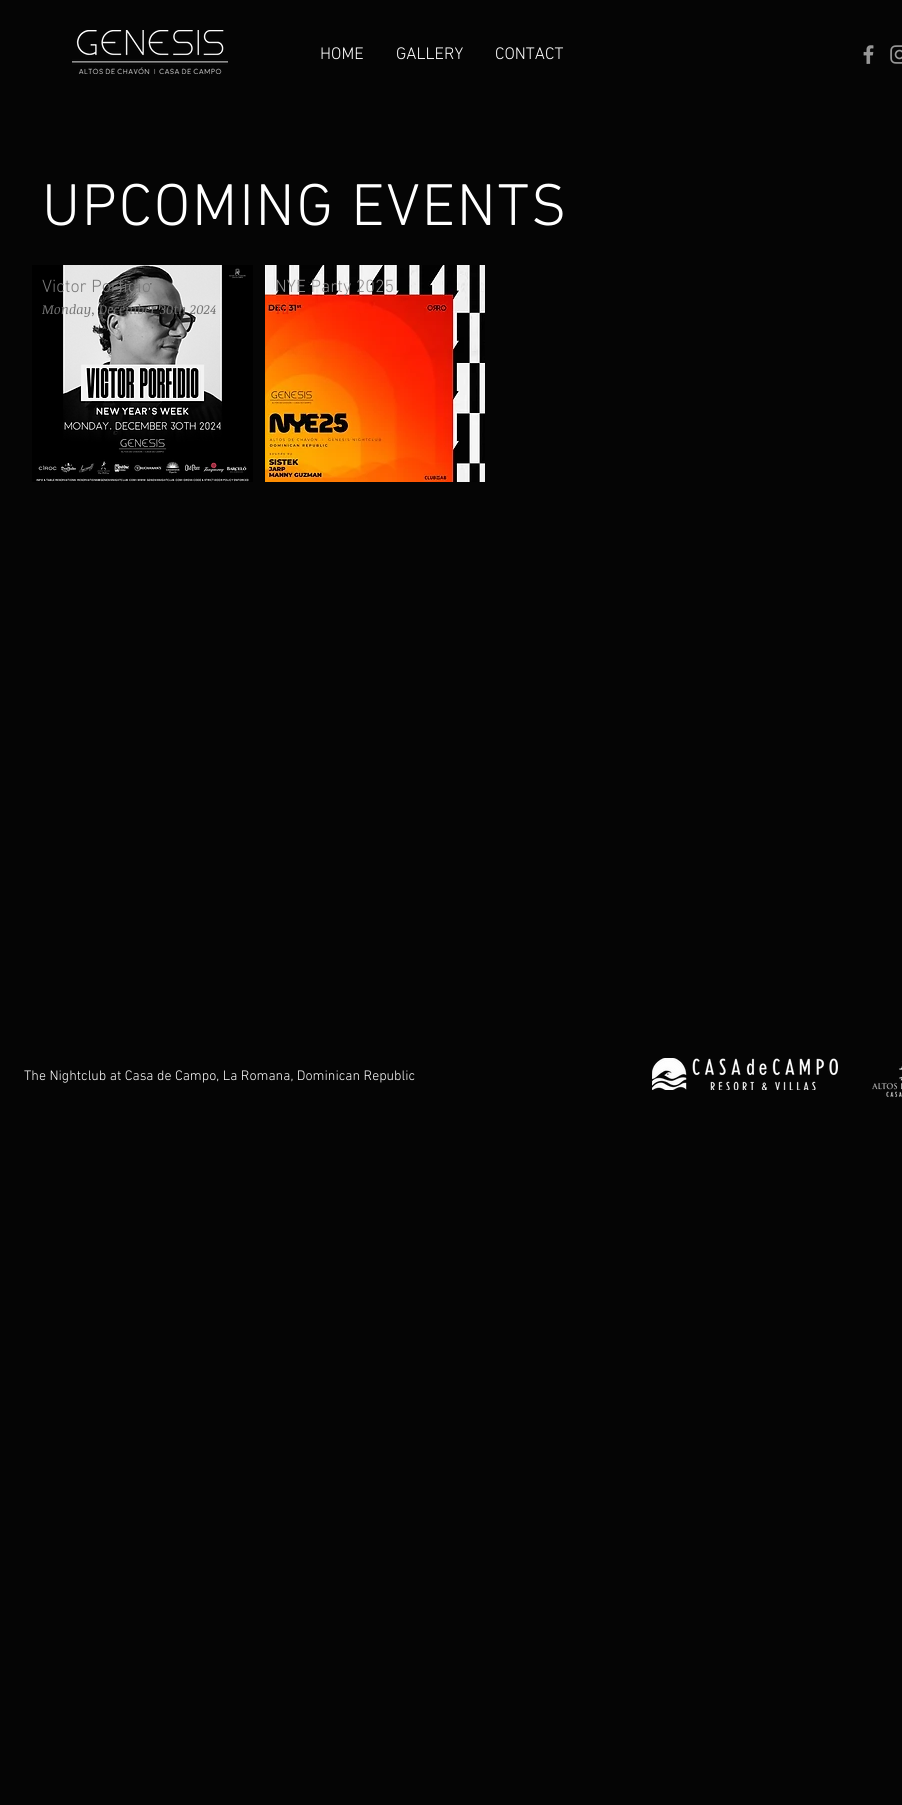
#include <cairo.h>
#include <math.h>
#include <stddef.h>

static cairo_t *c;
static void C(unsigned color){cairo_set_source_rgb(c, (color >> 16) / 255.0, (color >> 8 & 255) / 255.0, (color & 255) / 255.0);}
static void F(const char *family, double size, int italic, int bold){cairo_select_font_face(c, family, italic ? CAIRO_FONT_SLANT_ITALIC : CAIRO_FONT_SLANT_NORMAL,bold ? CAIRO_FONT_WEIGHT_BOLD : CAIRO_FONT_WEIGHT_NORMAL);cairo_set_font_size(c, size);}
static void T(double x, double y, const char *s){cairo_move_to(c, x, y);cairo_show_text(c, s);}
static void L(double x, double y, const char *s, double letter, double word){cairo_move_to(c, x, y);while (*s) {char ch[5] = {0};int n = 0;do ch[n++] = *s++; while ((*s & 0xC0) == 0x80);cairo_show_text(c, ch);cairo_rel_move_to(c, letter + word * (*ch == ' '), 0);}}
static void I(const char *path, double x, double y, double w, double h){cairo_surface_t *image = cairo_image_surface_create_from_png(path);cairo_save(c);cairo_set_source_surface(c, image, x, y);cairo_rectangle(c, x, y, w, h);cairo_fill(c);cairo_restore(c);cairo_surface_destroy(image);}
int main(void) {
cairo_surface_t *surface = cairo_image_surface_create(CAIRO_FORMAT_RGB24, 902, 1805);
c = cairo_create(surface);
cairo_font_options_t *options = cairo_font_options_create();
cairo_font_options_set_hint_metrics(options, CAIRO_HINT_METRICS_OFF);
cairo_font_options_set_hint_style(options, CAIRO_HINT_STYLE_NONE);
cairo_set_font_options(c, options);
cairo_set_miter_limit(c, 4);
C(0x050505);
cairo_paint(c);
I("1.png",72,30,156,44);
F("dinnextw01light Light",17,0,0);
C(0xffffff);
T(320,59,"HOME");
T(396,59,"GALLERY");
T(495,59,"CONTACT");
I("2.png",863,45,11,19);
I("3.png",890,45,12,19);
F("dinnextw01light Light",60,0,0);
L(42,225,"UPCOMING EVENTS",1.75,0);
I("4.png",32,265,221,217);
F("dinnextw01light Light",18,0,0);
C(0x7a7a7a);
T(42,292,"Victor Porfidio");
F("Noticia Text",13,1,0);
C(0x737373);
T(42,314,"Monday, December 30th 2024");
I("5.png",265,265,220,217);
F("dinnextw01light Light",18,0,0);
C(0x8e8c8c);
T(275,292,"NYE Party 2025");
F("Noticia Text",13,1,0);
C(0xe62305);
T(275,314,"Tu");
F("dinnextw01light Light",14,0,0);
C(0xffffff);
T(24,1080,"The Nightclub at Casa de Campo, La Romana, Dominican Republic");
I("6.png",652,1058,186,32);
I("7.png",872,1061,30,36);
cairo_surface_write_to_png(surface, "o.png");
cairo_font_options_destroy(options);
cairo_destroy(c);
cairo_surface_destroy(surface);
return 0;
}
